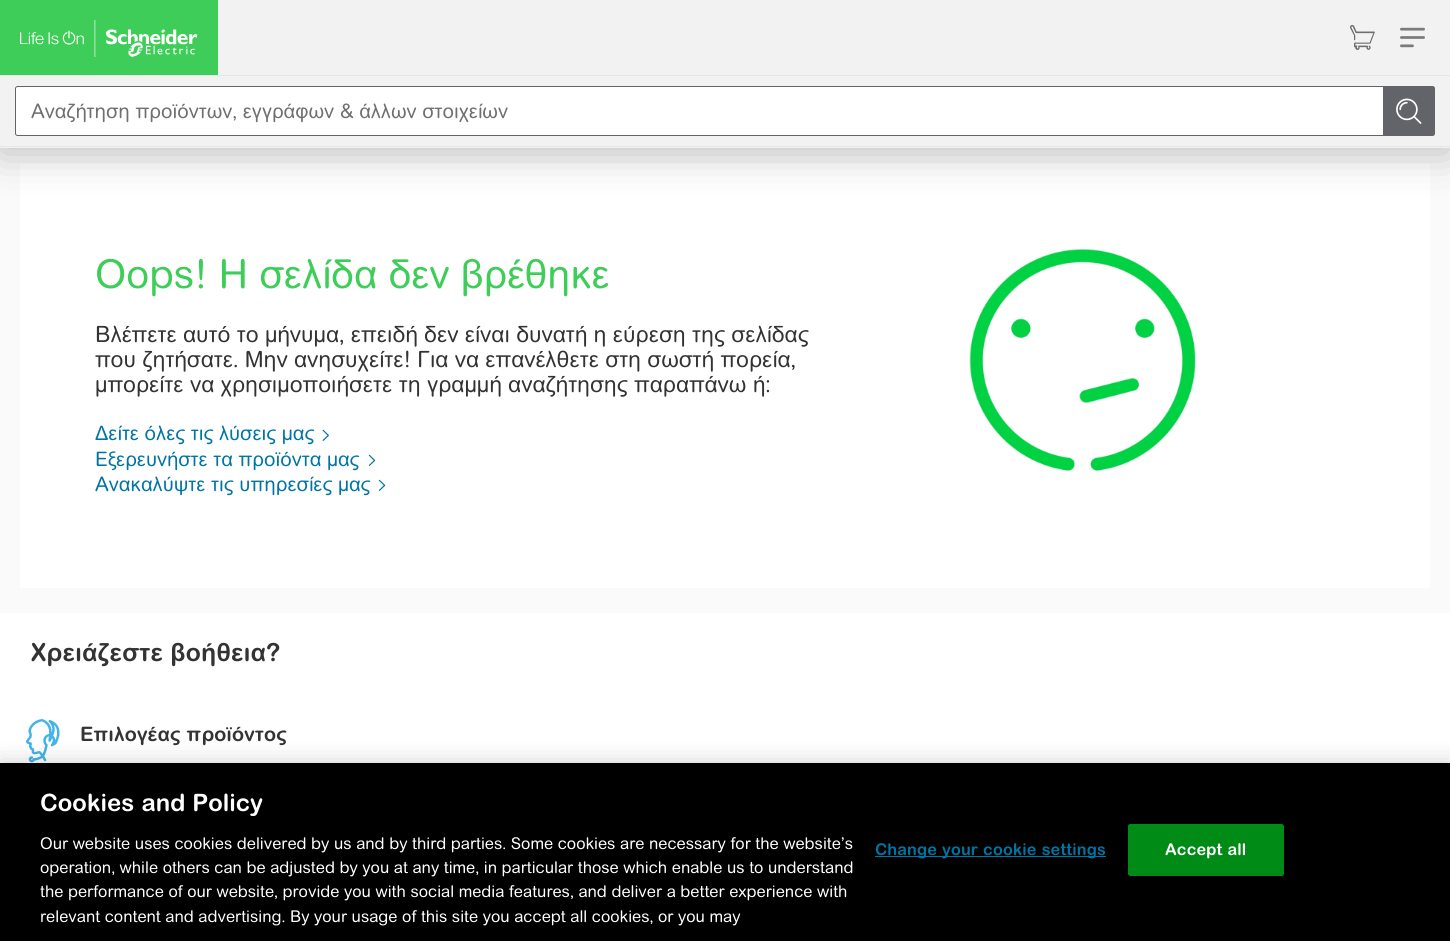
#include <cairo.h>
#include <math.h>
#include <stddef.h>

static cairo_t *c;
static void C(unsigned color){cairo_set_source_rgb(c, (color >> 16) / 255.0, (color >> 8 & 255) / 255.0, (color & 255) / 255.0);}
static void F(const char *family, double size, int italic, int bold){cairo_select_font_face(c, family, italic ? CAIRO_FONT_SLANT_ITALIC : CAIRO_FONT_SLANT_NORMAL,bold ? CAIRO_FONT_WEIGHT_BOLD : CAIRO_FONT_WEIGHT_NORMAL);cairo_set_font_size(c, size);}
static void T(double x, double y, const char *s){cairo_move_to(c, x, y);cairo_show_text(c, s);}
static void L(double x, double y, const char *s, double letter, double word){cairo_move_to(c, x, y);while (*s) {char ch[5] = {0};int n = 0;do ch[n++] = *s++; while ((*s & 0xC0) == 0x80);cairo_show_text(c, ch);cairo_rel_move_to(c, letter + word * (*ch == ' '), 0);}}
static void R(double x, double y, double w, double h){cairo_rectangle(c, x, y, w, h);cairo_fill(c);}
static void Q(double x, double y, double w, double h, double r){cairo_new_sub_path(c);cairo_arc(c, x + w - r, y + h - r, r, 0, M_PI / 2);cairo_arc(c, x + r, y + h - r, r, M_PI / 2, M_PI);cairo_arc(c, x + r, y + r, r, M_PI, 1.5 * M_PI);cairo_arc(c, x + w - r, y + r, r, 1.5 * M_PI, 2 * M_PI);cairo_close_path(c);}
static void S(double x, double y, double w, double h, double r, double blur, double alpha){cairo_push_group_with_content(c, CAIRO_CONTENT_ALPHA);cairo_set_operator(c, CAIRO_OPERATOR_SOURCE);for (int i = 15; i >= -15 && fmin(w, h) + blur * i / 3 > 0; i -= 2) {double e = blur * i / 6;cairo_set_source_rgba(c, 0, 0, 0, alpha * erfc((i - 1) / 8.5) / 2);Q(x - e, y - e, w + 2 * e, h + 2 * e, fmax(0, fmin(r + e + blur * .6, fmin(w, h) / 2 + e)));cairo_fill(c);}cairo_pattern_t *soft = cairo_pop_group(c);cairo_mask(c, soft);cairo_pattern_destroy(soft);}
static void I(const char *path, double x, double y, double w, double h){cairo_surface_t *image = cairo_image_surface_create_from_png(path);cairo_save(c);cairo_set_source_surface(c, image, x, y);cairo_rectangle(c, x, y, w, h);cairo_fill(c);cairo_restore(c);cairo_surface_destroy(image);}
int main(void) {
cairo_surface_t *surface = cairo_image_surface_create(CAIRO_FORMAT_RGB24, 1450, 941);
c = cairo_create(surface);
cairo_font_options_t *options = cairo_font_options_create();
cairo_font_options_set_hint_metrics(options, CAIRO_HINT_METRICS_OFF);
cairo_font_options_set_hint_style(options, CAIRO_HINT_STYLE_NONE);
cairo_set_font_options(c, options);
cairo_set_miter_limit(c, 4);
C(0xfafafa);
cairo_paint(c);
C(0xffffff);
R(20,164,1410,424);
C(0x000000);
S(0,5,1450,148,0,20,.25);
C(0xf3f2f2);
R(0,0,1450,148);
C(0xe7e6e6);
R(0,146,1450,1);
C(0x3dcd58);
R(0,0,218,75);
I("1.png",20,20,178,37);
I("2.png",1350,25,25,25);
I("3.png",1400,27,25,21);
C(0xe7e6e6);
R(0,75,1450,1);
C(0xffffff);
cairo_new_path(c);
cairo_move_to(c,17.5,86.5);
cairo_line_to(c,1383.5,86.5);
cairo_line_to(c,1383.5,135.5);
cairo_line_to(c,17.5,135.5);
cairo_curve_to(c,16.5,135.5,15.5,134.5,15.5,133.5);
cairo_line_to(c,15.5,88.5);
cairo_curve_to(c,15.5,87.5,16.5,86.5,17.5,86.5);
cairo_close_path(c);
cairo_fill_preserve(c);
C(0x626469);
cairo_set_line_width(c,1);
cairo_stroke(c);
F("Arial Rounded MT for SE",20,0,0);
C(0x6f6f6f);
T(31,118,"Αναζήτηση προϊόντων, εγγράφων & άλλων στοιχείων");
C(0x626469);
cairo_new_path(c);
cairo_move_to(c,1384,86);
cairo_line_to(c,1432.5,86);
cairo_curve_to(c,1434,86,1435,87,1435,88.5);
cairo_line_to(c,1435,133.5);
cairo_curve_to(c,1435,135,1434,136,1432.5,136);
cairo_line_to(c,1384,136);
cairo_close_path(c);
cairo_fill(c);
I("4.png",1396,98,26,26);
F("Arial Rounded MT for SE",40,0,0);
C(0x3dcd58);
T(95,288,"Oops! Η σελίδα δεν βρέθηκε");
F("Arial Rounded MT for SE",22.5,0,0);
C(0x333333);
T(95,342,"Βλέπετε αυτό το μήνυμα, επειδή δεν είναι δυνατή η εύρεση της σελίδας");
T(95,367,"που ζητήσατε. Μην ανησυχείτε! Για να επανέλθετε στη σωστή πορεία,");
T(95,392,"μπορείτε να χρησιμοποιήσετε τη γραμμή αναζήτησης παραπάνω ή:");
F("Arial Rounded MT for SE",20,0,0);
C(0x0075a3);
T(95,440,"Δείτε όλες τις λύσεις μας");
I("5.png",322,429,7,12);
T(95,466,"Εξερευνήστε τα προϊόντα μας");
I("6.png",368,454,8,12);
T(95,491,"Ανακαλύψτε τις υπηρεσίες μας");
I("6.png",378,479,8,12);
I("7.png",969,249,227,223);
C(0xffffff);
R(0,613,1450,150);
F("Arial Rounded MT for SE",25,0,1);
C(0x333333);
T(31,661,"Χρειάζεστε βοήθεια?");
I("8.png",26,719,34,44);
F("Arial Rounded MT for SE",20,0,1);
T(80,741,"Επιλογέας προϊόντος");
C(0x000000);
S(0,763,1450,178,0,11,.2);
C(0x000000);
R(0,763,1450,178);
F("Arial Rounded MT for SE",24,0,1);
C(0xffffff);
T(40,811,"Cookies and Policy");
F("Arial Rounded MT for SE",16.25,0,0);
T(40,849,"Our website uses cookies delivered by us and by third parties. Some cookies are necessary for the website’s");
T(40,873,"operation, while others can be adjusted by you at any time, in particular those which enable us to understand");
T(40,897,"the performance of our website, provide you with social media features, and deliver a better experience with");
T(40,922,"relevant content and advertising. By your usage of this site you accept all cookies, or you may");
C(0x0075a3);
R(875,856,231,1);
F("Arial Rounded MT for SE",16.25,0,1);
L(875,855,"Change your cookie settings",.15,0);
C(0x008a16);
Q(1128.5,824.5,155,51,2);
cairo_fill_preserve(c);
cairo_stroke(c);
C(0xffffff);
L(1165,855,"Accept all",.15,0);
cairo_surface_write_to_png(surface, "o.png");
cairo_font_options_destroy(options);
cairo_destroy(c);
cairo_surface_destroy(surface);
return 0;
}
